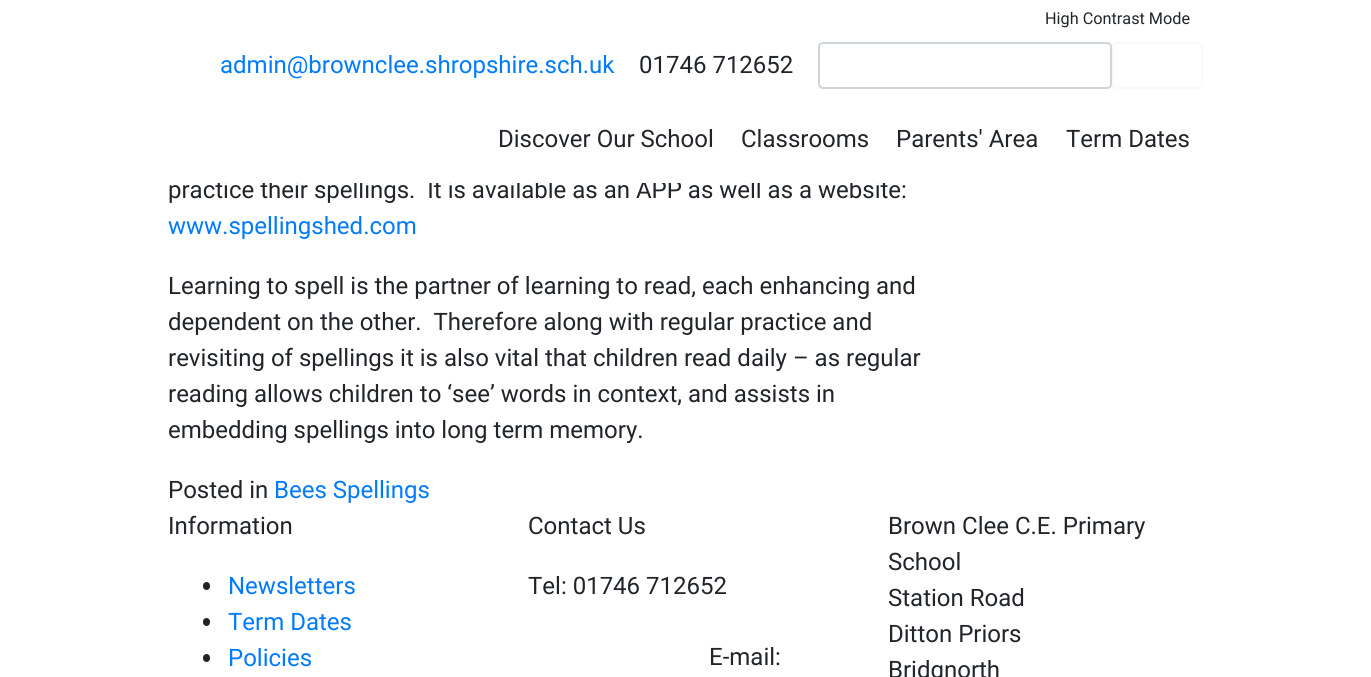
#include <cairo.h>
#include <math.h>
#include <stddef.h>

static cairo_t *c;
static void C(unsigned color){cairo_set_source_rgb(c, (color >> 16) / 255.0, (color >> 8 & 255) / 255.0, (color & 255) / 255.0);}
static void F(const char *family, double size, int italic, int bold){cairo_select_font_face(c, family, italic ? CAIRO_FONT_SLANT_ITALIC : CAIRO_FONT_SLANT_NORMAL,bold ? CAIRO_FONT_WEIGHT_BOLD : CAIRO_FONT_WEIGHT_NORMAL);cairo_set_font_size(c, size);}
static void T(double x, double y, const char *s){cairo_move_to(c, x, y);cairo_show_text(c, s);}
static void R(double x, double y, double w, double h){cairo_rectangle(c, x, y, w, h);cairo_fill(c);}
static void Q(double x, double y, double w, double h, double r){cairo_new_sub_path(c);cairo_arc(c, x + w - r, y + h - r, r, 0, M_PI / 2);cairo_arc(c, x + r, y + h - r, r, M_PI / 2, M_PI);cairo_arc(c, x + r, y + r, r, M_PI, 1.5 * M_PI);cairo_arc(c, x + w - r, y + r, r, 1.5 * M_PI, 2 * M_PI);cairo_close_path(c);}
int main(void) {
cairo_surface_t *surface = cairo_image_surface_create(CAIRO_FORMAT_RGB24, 1371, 677);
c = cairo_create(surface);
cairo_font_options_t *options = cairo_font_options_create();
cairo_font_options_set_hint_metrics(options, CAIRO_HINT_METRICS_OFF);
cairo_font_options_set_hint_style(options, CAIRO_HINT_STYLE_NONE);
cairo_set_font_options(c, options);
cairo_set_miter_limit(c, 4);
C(0xffffff);
cairo_paint(c);
F("Roboto",24,0,0);
C(0x212529);
T(168,198,"practice their spellings.  It is available as an APP as well as a website:");
C(0xffffff);
R(217,180,669,3);
F("Roboto",16.25,0,0);
C(0x212529);
T(1045,24,"High Contrast Mode");
F("Roboto",24,0,0);
C(0x007bff);
T(220,73,"admin@brownclee.shropshire.sch.uk");
C(0x212529);
T(639,73,"01746 712652");
Q(819,43,292,45,4);
C(0xced4da);
cairo_stroke(c);
Q(1113,43,89,45,4);
C(0xf8f9fa);
cairo_stroke(c);
C(0x212529);
T(498,147,"Discover Our School");
T(741,147,"Classrooms");
T(896,147,"Parents' Area");
T(1066,147,"Term Dates");
C(0x007bff);
T(168,234,"www.spellingshed.com");
C(0x212529);
T(168,294,"Learning to spell is the partner of learning to read, each enhancing and");
T(168,330,"dependent on the other.  Therefore along with regular practice and");
T(168,366,"revisiting of spellings it is also vital that children read daily – as regular");
T(168,402,"reading allows children to ‘see’ words in context, and assists in");
T(168,438,"embedding spellings into long term memory.");
T(168,498,"Posted in");
C(0x007bff);
T(274,498,"Bees Spellings");
C(0x212529);
T(168,534,"Information");
Q(203,582,7,8,3.5);
cairo_fill(c);
C(0x007bff);
T(228,594,"Newsletters");
C(0x212529);
Q(203,618,7,8,3.5);
cairo_fill(c);
C(0x007bff);
T(228,630,"Term Dates");
C(0x212529);
Q(203,654,7,8,3.5);
cairo_fill(c);
C(0x007bff);
T(228,666,"Policies");
C(0x212529);
T(528,534,"Contact Us");
T(528,594,"Tel: 01746 712652");
T(709,665,"E-mail:");
T(888,534,"Brown Clee C.E. Primary");
T(888,570,"School");
T(888,606,"Station Road");
T(888,642,"Ditton Priors");
T(888,678,"Bridgnorth");
cairo_surface_write_to_png(surface, "o.png");
cairo_font_options_destroy(options);
cairo_destroy(c);
cairo_surface_destroy(surface);
return 0;
}
